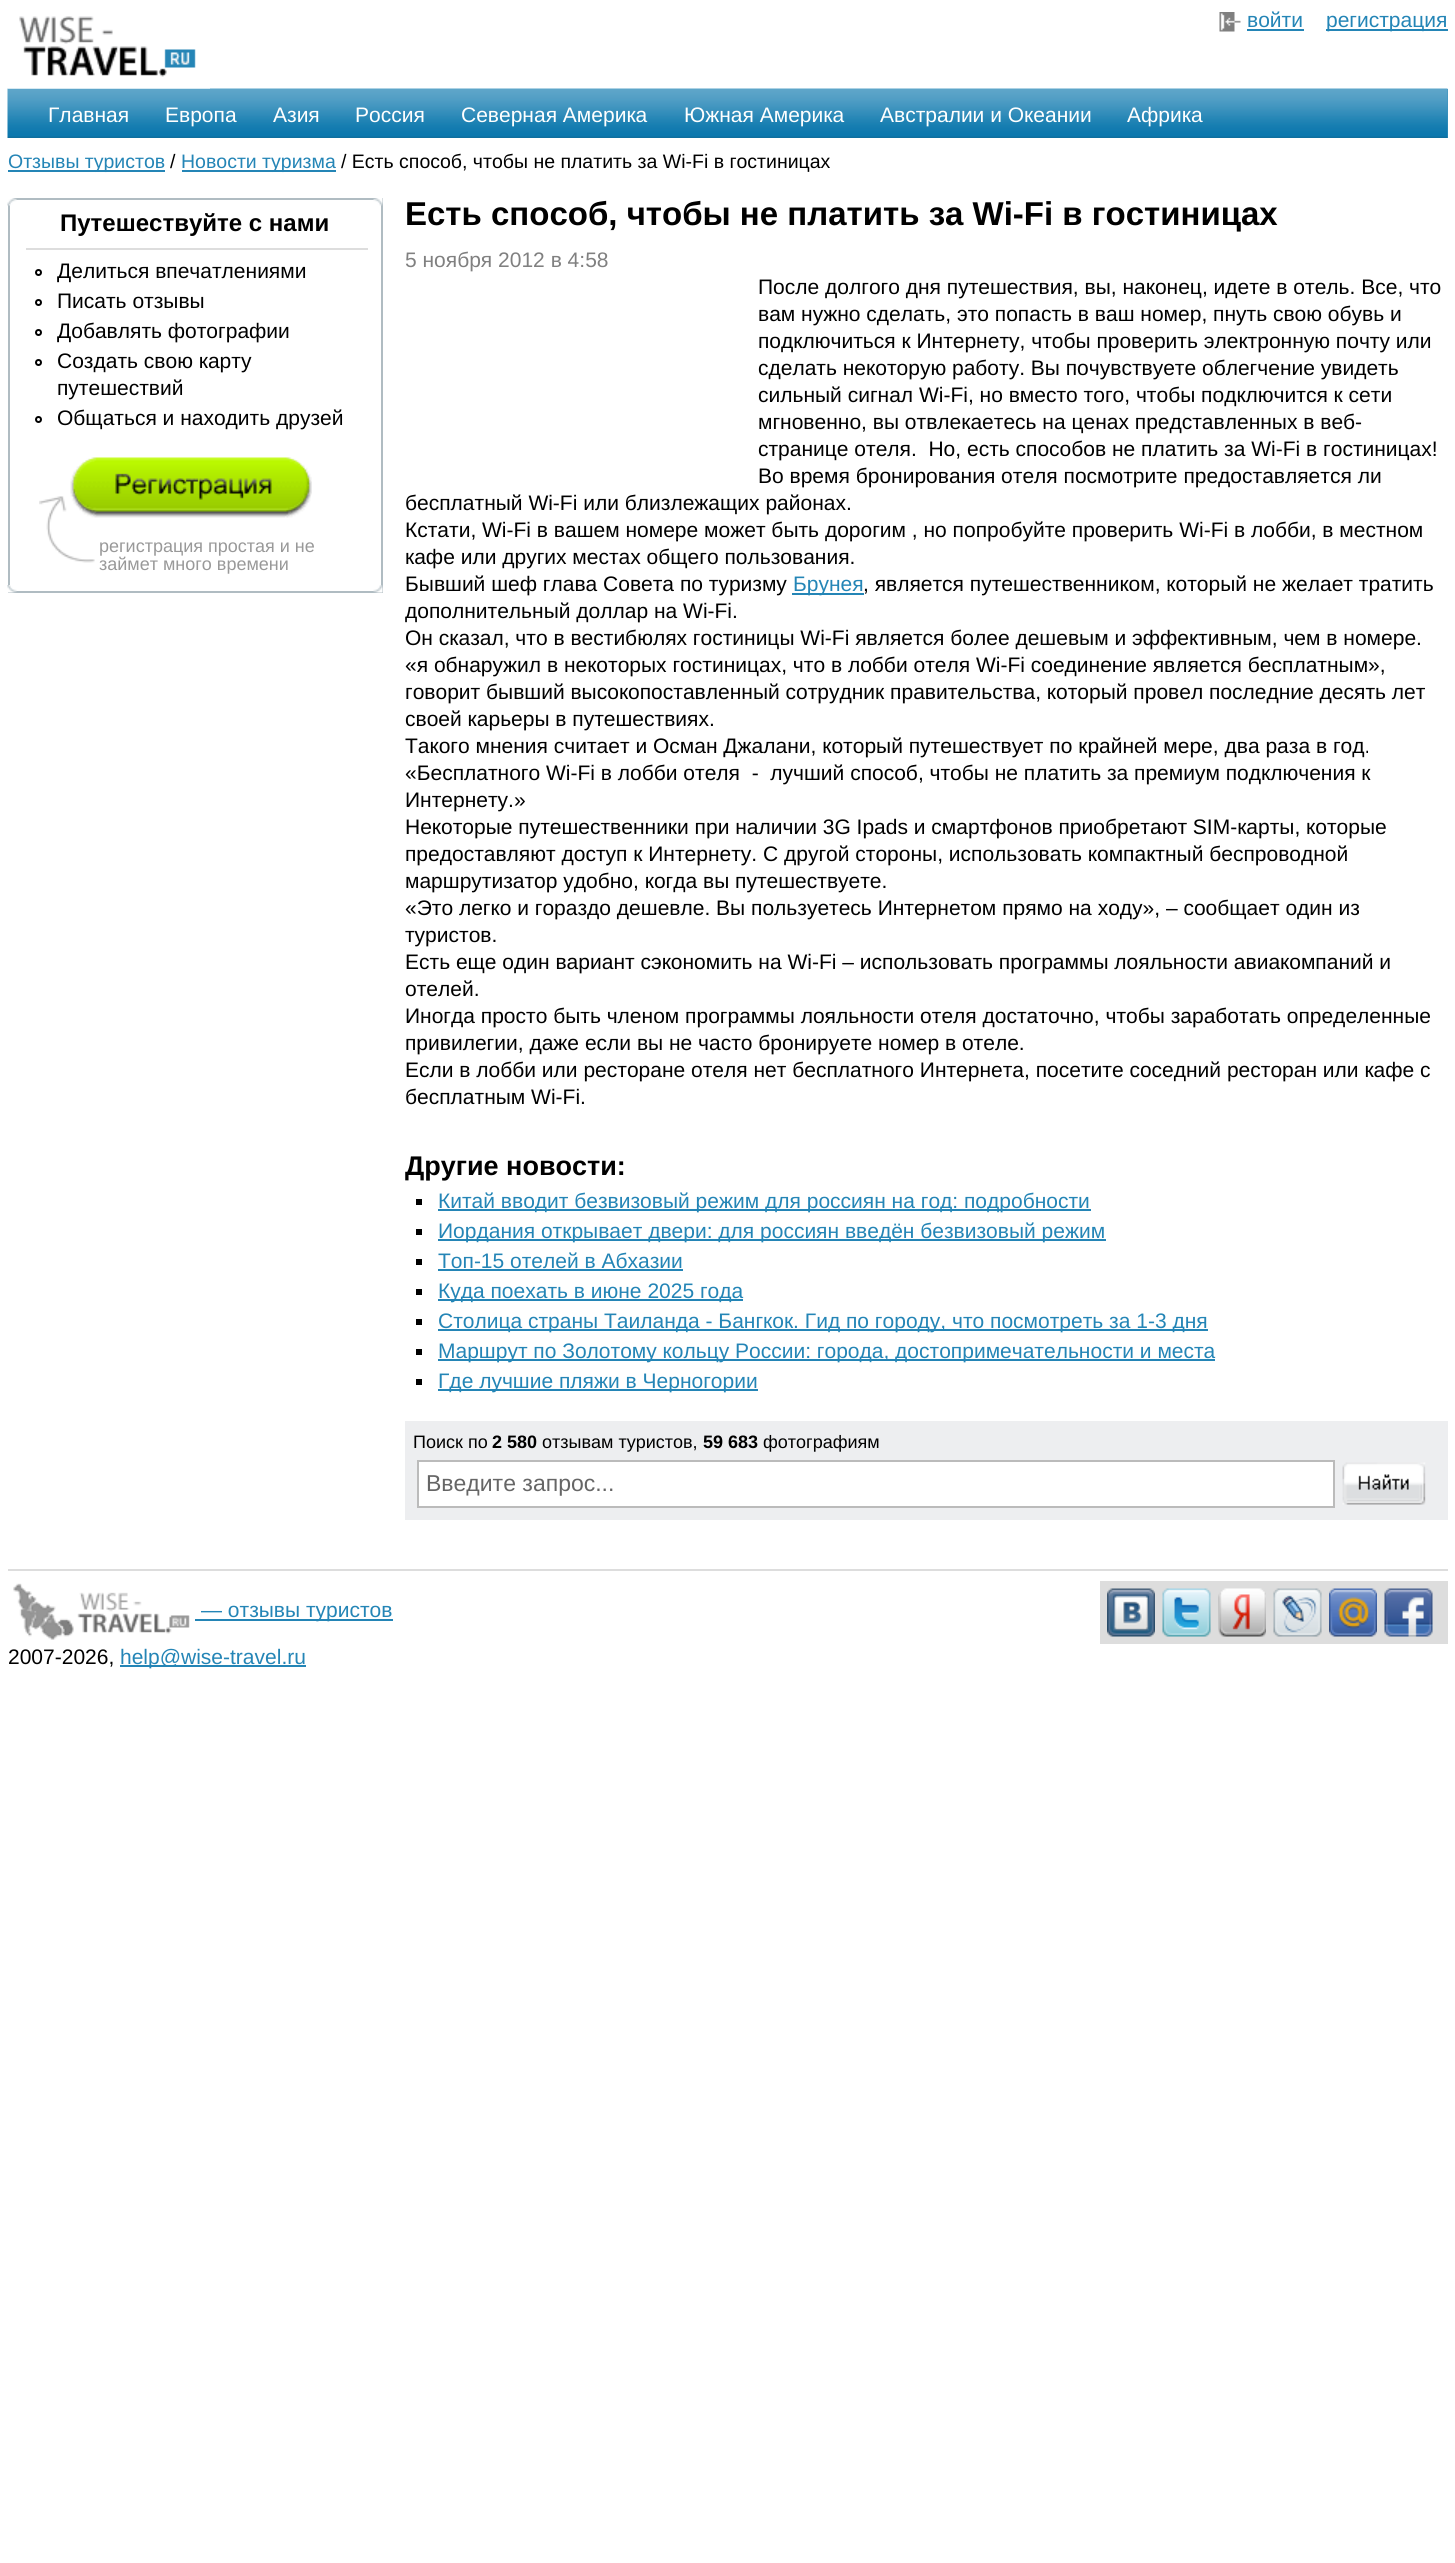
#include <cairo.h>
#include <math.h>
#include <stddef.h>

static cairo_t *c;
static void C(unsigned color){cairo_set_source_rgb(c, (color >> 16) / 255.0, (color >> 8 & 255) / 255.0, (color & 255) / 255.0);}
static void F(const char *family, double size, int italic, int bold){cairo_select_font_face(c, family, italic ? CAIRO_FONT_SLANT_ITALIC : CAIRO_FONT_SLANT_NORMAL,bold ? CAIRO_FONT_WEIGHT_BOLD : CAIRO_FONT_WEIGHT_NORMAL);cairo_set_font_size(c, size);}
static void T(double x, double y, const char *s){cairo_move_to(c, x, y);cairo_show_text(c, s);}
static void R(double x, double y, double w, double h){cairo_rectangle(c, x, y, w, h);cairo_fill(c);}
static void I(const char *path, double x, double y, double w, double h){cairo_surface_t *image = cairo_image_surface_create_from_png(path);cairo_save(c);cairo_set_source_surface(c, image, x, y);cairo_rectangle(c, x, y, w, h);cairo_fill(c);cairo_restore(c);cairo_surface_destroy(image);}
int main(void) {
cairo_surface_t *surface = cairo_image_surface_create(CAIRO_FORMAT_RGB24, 1455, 2563);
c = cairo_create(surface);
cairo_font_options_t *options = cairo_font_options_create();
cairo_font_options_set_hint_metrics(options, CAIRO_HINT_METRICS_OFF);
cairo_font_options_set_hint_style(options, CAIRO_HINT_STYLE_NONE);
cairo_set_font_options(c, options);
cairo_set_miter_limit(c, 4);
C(0xffffff);
cairo_paint(c);
C(0x3a91bd);
R(1447,89,1,49);
I("3.png",7,88,1441,50);
I("1.png",7,16,203,73);
I("2.png",1219,12,22,20);
F("Liberation Sans",21,0,0);
C(0x2485b6);
T(1247,27,"войти");
R(1247,29,57,2);
R(1326,29,122,2);
T(1326,27,"регистрация");
C(0xffffff);
T(48,122,"Главная");
T(165,122,"Европа");
T(273,122,"Азия");
T(355,122,"Россия");
T(461,122,"Северная Америка");
T(684,122,"Южная Америка");
T(880,122,"Австралии и Океании");
T(1127,122,"Африка");
C(0x2485b6);
R(8,170,157,2);
F("Liberation Sans",19.5,0,0);
T(8,168,"Отзывы туристов");
C(0x000000);
T(170,168,"/");
C(0x2485b6);
R(182,170,154,2);
T(181,168,"Новости туризма");
C(0x000000);
T(341,168,"/ Есть способ, чтобы не платить за Wi-Fi в гостиницах");
cairo_rectangle(c,9,199,373,393);
C(0xb0bcc2);
cairo_stroke(c);
I("4.png",7,198,10,8);
I("5.png",373,198,10,8);
F("Liberation Sans",24,0,1);
C(0x000000);
T(60,231,"Путешествуйте с нами");
C(0xdddddd);
R(26,248,342,2);
cairo_new_path(c);
cairo_arc(c,38.5,272.5,2.5,0,2 * M_PI);
C(0x000000);
cairo_stroke(c);
F("Liberation Sans",21,0,0);
T(57,278,"Делиться впечатлениями");
cairo_new_path(c);
cairo_arc(c,38.5,302.5,2.5,0,2 * M_PI);
cairo_stroke(c);
T(57,308,"Писать отзывы");
cairo_new_path(c);
cairo_arc(c,38.5,332.5,2.5,0,2 * M_PI);
cairo_stroke(c);
T(57,338,"Добавлять фотографии");
cairo_new_path(c);
cairo_arc(c,38.5,362.5,2.5,0,2 * M_PI);
cairo_stroke(c);
T(57,368,"Создать свою карту");
T(57,395,"путешествий");
cairo_new_path(c);
cairo_arc(c,38.5,419.5,2.5,0,2 * M_PI);
cairo_stroke(c);
T(57,425,"Общаться и находить друзей");
I("6.png",39,496,56,67);
I("7.png",70,457,242,61);
F("Liberation Sans",18,0,0);
C(0x999999);
T(99,552,"регистрация простая и не");
T(99,570,"займет много времени");
I("8.png",7,585,10,8);
I("9.png",373,585,10,8);
F("Liberation Sans",33,0,1);
C(0x000000);
T(405,225,"Есть способ, чтобы не платить за Wi-Fi в гостиницах");
F("Liberation Sans",21,0,0);
C(0x808080);
T(405,267,"5 ноября 2012 в 4:58");
C(0x000000);
T(758,294,"После долгого дня путешествия, вы, наконец, идете в отель. Все, что");
T(758,321,"вам нужно сделать, это попасть в ваш номер, пнуть свою обувь и");
T(758,348,"подключиться к Интернету, чтобы проверить электронную почту или");
T(758,375,"сделать некоторую работу. Вы почувствуете облегчение увидеть");
T(758,402,"сильный сигнал Wi-Fi, но вместо того, чтобы подключится к сети");
T(758,429,"мгновенно, вы отвлекаетесь на ценах представленных в веб-");
T(758,456,"странице отеля.  Но, есть способов не платить за Wi-Fi в гостиницах!");
T(758,483,"Во время бронирования отеля посмотрите предоставляется ли");
T(405,510,"бесплатный Wi-Fi или близлежащих районах.");
T(405,537,"Кстати, Wi-Fi в вашем номере может быть дорогим , но попробуйте проверить Wi-Fi в лобби, в местном");
T(405,564,"кафе или других местах общего пользования.");
T(405,591,"Бывший шеф глава Совета по туризму");
C(0x2485b6);
R(792,593,72,2);
T(793,591,"Брунея");
C(0x000000);
T(863,591,", является путешественником, который не желает тратить");
T(405,618,"дополнительный доллар на Wi-Fi.");
T(405,645,"Он сказал, что в вестибюлях гостиницы Wi-Fi является более дешевым и эффективным, чем в номере.");
T(405,672,"«я обнаружил в некоторых гостиницах, что в лобби отеля Wi-Fi соединение является бесплатным»,");
T(405,699,"говорит бывший высокопоставленный сотрудник правительства, который провел последние десять лет");
T(405,726,"своей карьеры в путешествиях.");
T(405,753,"Такого мнения считает и Осман Джалани, который путешествует по крайней мере, два раза в год.");
T(405,780,"«Бесплатного Wi-Fi в лобби отеля  -  лучший способ, чтобы не платить за премиум подключения к");
T(405,807,"Интернету.»");
T(405,834,"Некоторые путешественники при наличии 3G Ipads и смартфонов приобретают SIM-карты, которые");
T(405,861,"предоставляют доступ к Интернету. С другой стороны, использовать компактный беспроводной");
T(405,888,"маршрутизатор удобно, когда вы путешествуете.");
T(405,915,"«Это легко и гораздо дешевле. Вы пользуетесь Интернетом прямо на ходу», – сообщает один из");
T(405,942,"туристов.");
T(405,969,"Есть еще один вариант сэкономить на Wi-Fi – использовать программы лояльности авиакомпаний и");
T(405,996,"отелей.");
T(405,1023,"Иногда просто быть членом программы лояльности отеля достаточно, чтобы заработать определенные");
T(405,1050,"привилегии, даже если вы не часто бронируете номер в отеле.");
T(405,1077,"Если в лобби или ресторане отеля нет бесплатного Интернета, посетите соседний ресторан или кафе с");
T(405,1104,"бесплатным Wi-Fi.");
F("Liberation Sans",27,0,1);
T(405,1175,"Другие новости:");
R(416,1199,6,6);
C(0x2485b6);
R(438,1209,653,2);
F("Liberation Sans",21,0,0);
T(438,1208,"Китай вводит безвизовый режим для россиян на год: подробности");
C(0x000000);
R(416,1229,6,6);
C(0x2485b6);
R(438,1239,668,2);
T(438,1238,"Иордания открывает двери: для россиян введён безвизовый режим");
C(0x000000);
R(416,1259,6,6);
C(0x2485b6);
T(438,1268,"Топ-15 отелей в Абхазии");
R(438,1269,245,2);
C(0x000000);
R(416,1289,6,6);
C(0x2485b6);
R(438,1299,305,2);
T(438,1298,"Куда поехать в июне 2025 года");
C(0x000000);
R(416,1319,6,6);
C(0x2485b6);
R(438,1329,770,2);
T(438,1328,"Столица страны Таиланда - Бангкок. Гид по городу, что посмотреть за 1-3 дня");
C(0x000000);
R(416,1349,6,6);
C(0x2485b6);
R(438,1359,777,2);
T(438,1358,"Маршрут по Золотому кольцу России: города, достопримечательности и места");
C(0x000000);
R(416,1379,6,6);
C(0x2485b6);
R(438,1389,320,2);
T(438,1388,"Где лучшие пляжи в Черногории");
C(0xedeef0);
R(405,1421,1043,99);
F("Liberation Sans",18,0,0);
C(0x000000);
T(413,1448,"Поиск по");
F("Liberation Sans",18,0,1);
T(492,1448,"2 580");
F("Liberation Sans",18,0,0);
T(542,1448,"отзывам туристов,");
F("Liberation Sans",18,0,1);
T(703,1448,"59 683");
F("Liberation Sans",18,0,0);
T(763,1448,"фотографиям");
C(0xffffff);
cairo_rectangle(c,418,1461,916,46);
cairo_fill_preserve(c);
C(0xbbbbbb);
cairo_stroke(c);
F("Liberation Sans",23,0,0);
C(0x666666);
T(426,1491,"Введите запрос...");
I("10.png",1342,1462,84,43);
C(0xdddddd);
R(8,1569,1440,2);
I("11.png",13,1583,177,57);
C(0x2485b6);
R(195,1619,198,2);
F("Liberation Sans",21,0,0);
T(201,1617,"— отзывы туристов");
C(0xdddddd);
R(1100,1581,348,63);
I("12.png",1107,1588,48,49);
I("13.png",1162,1588,49,49);
I("14.png",1218,1588,48,49);
I("15.png",1273,1588,49,49);
I("16.png",1329,1588,48,49);
I("17.png",1384,1588,49,49);
C(0x000000);
T(8,1664,"2007-2026,");
C(0x2485b6);
R(120,1665,186,2);
T(120,1664,"help@wise-travel.ru");
cairo_surface_write_to_png(surface, "o.png");
cairo_font_options_destroy(options);
cairo_destroy(c);
cairo_surface_destroy(surface);
return 0;
}
